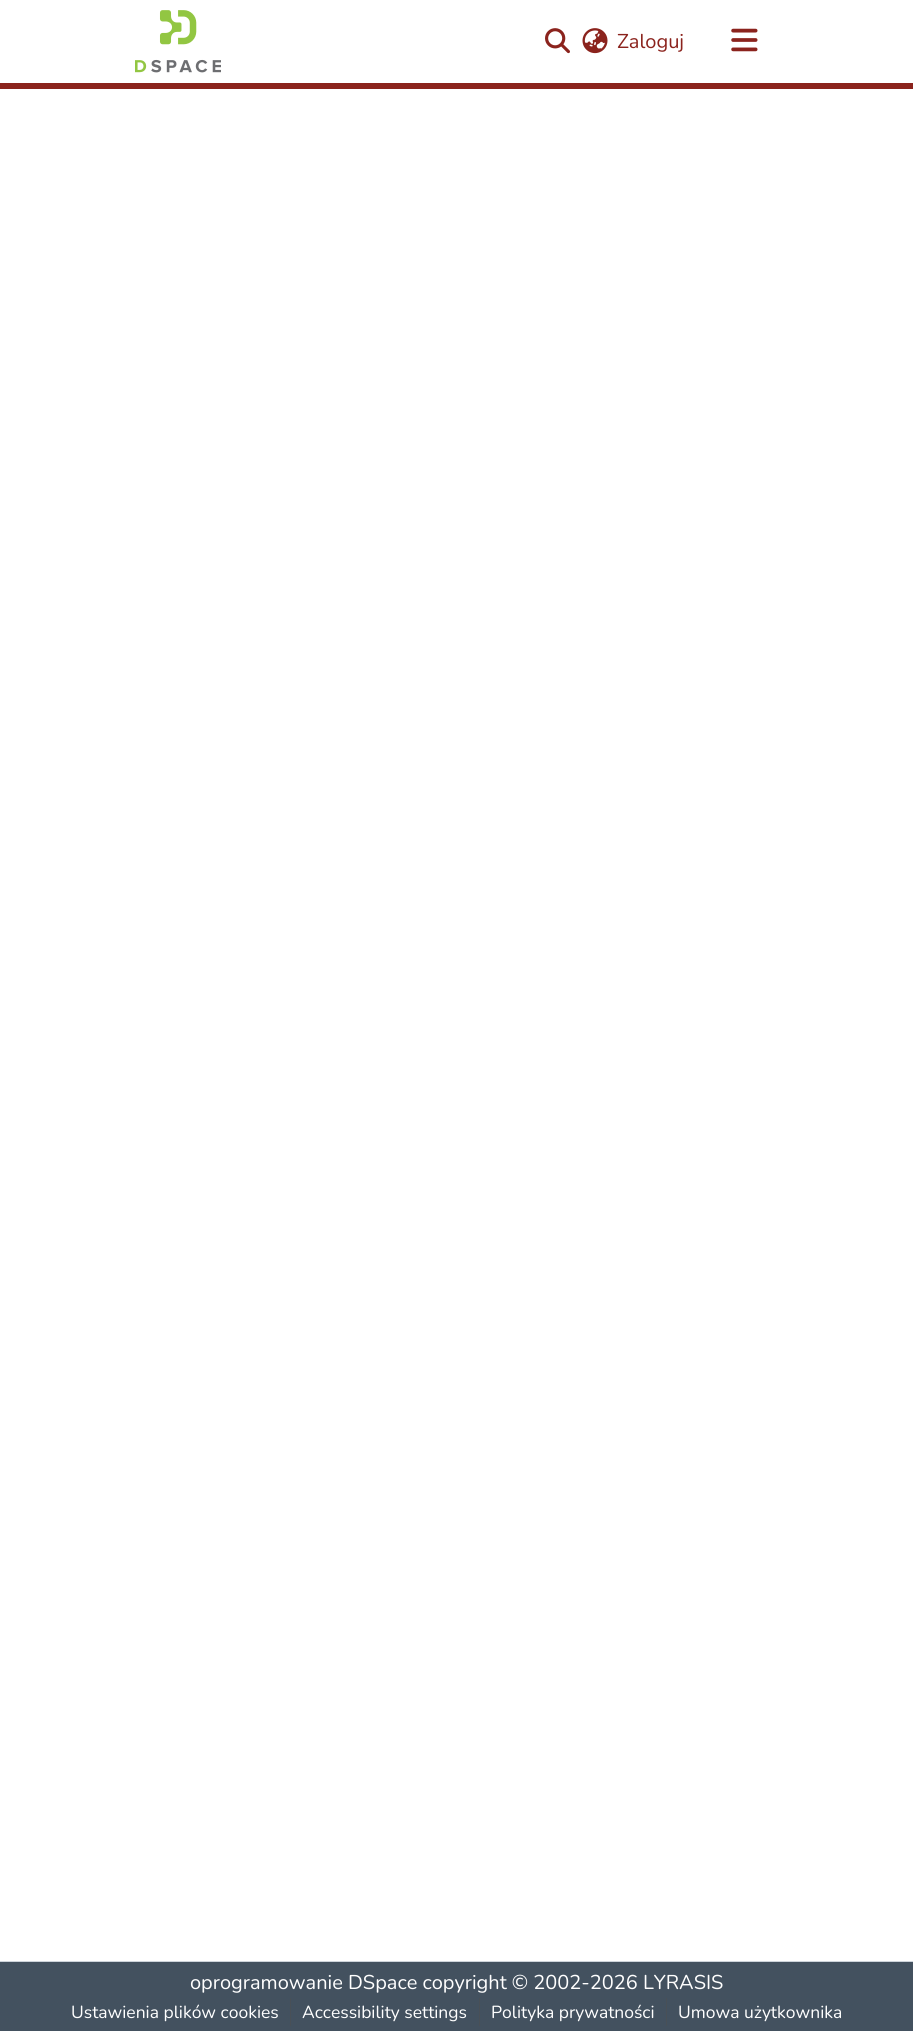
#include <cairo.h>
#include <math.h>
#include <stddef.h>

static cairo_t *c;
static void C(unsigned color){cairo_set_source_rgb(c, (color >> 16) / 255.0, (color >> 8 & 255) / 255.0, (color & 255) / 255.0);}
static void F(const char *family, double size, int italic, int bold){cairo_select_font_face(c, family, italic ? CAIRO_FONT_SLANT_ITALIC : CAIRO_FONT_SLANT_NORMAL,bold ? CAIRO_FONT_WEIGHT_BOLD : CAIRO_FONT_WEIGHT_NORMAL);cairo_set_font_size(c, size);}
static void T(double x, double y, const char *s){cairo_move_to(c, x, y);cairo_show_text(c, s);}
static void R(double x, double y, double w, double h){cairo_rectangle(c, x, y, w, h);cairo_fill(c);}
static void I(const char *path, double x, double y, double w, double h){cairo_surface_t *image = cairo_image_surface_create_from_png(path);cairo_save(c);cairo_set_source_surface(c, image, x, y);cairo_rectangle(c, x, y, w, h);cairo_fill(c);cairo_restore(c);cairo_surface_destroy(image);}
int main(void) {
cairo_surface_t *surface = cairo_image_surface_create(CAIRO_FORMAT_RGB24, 913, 2031);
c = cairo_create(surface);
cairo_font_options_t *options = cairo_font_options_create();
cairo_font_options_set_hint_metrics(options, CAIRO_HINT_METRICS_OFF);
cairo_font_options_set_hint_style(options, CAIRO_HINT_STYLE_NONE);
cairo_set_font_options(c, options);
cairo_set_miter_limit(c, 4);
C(0xffffff);
cairo_paint(c);
C(0x8b231d);
R(0,83,913,6);
I("1.png",135,10,86,63);
I("2.png",545,28,25,26);
I("3.png",582,28,26,26);
F("Nunito",20,0,0);
T(617,48,"Zaloguj");
I("4.png",731,28,27,24);
C(0x43515f);
R(0,1962,913,69);
C(0xced4da);
R(0,1961,913,1);
C(0xffffff);
T(190,1989,"oprogramowanie DSpace copyright © 2002-2026 LYRASIS");
F("Nunito",17.5,0,0);
T(71,2018,"Ustawienia plików cookies");
C(0x495057);
R(290,1998,1,28);
C(0xffffff);
T(302,2018,"Accessibility settings");
C(0x495057);
R(479,1998,1,28);
C(0xffffff);
T(491,2018,"Polityka prywatności");
C(0x495057);
R(666,1998,1,28);
C(0xffffff);
T(678,2018,"Umowa użytkownika");
cairo_surface_write_to_png(surface, "o.png");
cairo_font_options_destroy(options);
cairo_destroy(c);
cairo_surface_destroy(surface);
return 0;
}
